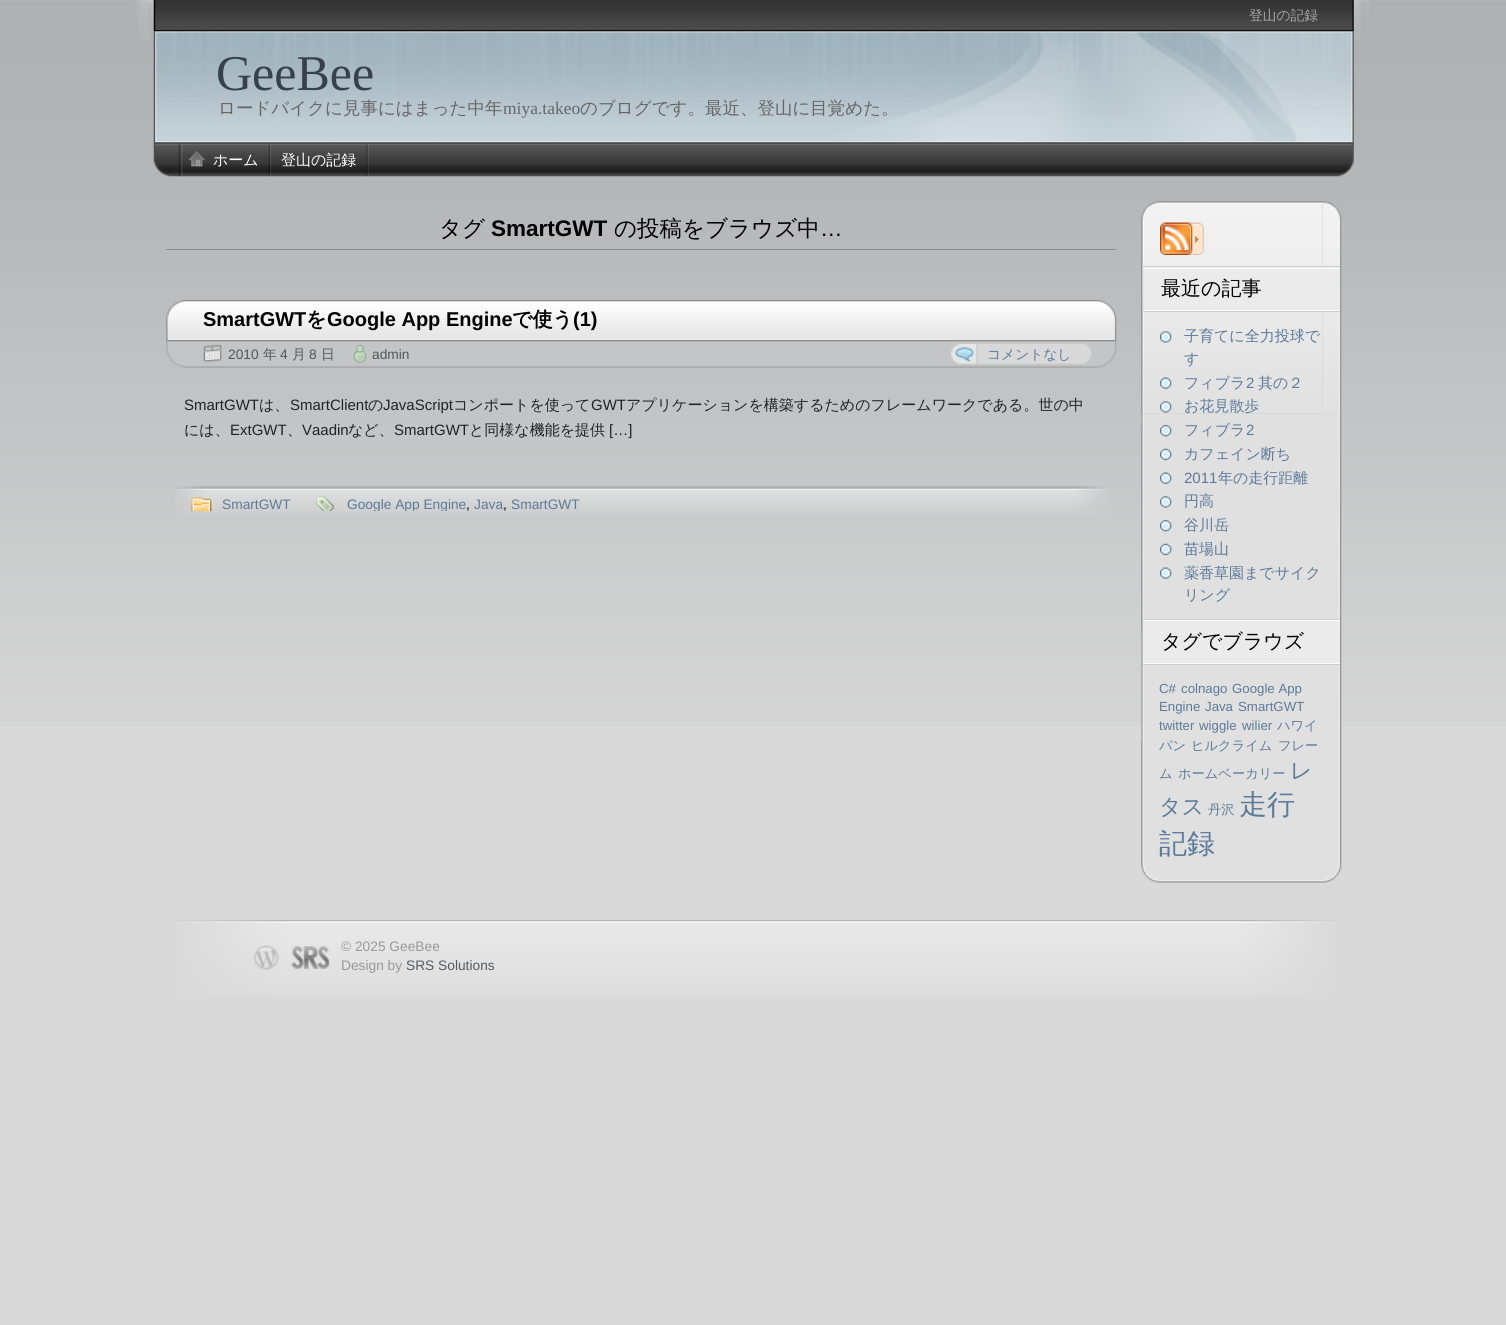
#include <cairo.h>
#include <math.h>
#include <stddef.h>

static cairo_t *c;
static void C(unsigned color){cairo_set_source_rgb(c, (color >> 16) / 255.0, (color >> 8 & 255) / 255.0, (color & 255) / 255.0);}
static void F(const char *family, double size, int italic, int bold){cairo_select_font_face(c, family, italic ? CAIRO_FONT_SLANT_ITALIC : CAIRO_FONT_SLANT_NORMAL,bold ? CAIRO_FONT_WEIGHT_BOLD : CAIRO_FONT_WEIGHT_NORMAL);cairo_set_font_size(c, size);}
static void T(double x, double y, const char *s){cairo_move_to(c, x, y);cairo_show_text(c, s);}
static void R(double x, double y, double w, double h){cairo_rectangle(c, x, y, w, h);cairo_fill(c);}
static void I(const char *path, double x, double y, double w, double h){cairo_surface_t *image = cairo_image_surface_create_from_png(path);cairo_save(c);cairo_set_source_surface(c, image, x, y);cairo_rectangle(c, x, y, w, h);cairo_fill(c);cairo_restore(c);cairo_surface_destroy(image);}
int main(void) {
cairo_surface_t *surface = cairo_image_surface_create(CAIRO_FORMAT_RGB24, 1506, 1325);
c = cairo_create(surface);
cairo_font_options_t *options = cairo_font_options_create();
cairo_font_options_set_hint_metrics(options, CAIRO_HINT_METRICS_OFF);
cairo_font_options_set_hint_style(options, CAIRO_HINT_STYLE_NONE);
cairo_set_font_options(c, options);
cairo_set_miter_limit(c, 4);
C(0xd9d9d9);
cairo_paint(c);
I("1.png",0,0,1506,726);
I("2.png",135,0,1235,40);
I("4.png",153,31,1201,112);
I("3.png",153,0,1201,32);
F("WenQuanYi Zen Hei Medium",13.75,0,0);
C(0xa6a6a6);
T(1249,20,"登山の記録");
F("Liberation Serif",50,0,0);
C(0x36414d);
T(216,90,"GeeBee");
F("WenQuanYi Zen Hei Medium",17.5,0,0);
C(0x666666);
T(218,114,"ロードバイクに見事にはまった中年");
F("Liberation Serif",17.5,0,0);
T(503,114,"miya.takeo");
F("WenQuanYi Zen Hei Medium",17.5,0,0);
T(580,114,"のブログです。最近、登山に目覚めた。");
I("5.png",153,142,1201,35);
I("6.png",153,142,1201,2);
I("7.png",178,143,5,34);
I("8.png",268,143,4,34);
I("9.png",188,151,17,16);
F("WenQuanYi Zen Hei Medium",15,0,0);
C(0xffffff);
T(213,165,"ホーム");
I("10.png",366,144,3,33);
T(281,165,"登山の記録");
C(0x8c8c8c);
R(166,249,950,1);
F("WenQuanYi Zen Hei Medium",22.5,0,0);
C(0x000000);
T(439,236,"タグ");
F("Liberation Sans",22.5,0,1);
T(491,236,"SmartGWT");
F("WenQuanYi Zen Hei Medium",22.5,0,0);
T(614,236,"の投稿をブラウズ中");
F("Liberation Sans",22.5,0,0);
T(820,236,"…");
I("11.png",166,300,932,40);
I("12.png",1097,300,20,40);
F("Liberation Sans",20,0,1);
T(203,326,"SmartGWT");
F("WenQuanYi Zen Hei",20,0,1);
T(306,326,"を");
F("Liberation Sans",20,0,1);
T(327,326,"Google App Engine");
F("WenQuanYi Zen Hei",20,0,1);
T(512,326,"で使う");
F("Liberation Sans",20,0,1);
T(573,326,"(1)");
I("13.png",166,340,932,28);
I("14.png",185,340,932,28);
I("15.png",203,345,19,18);
F("Liberation Sans",13.75,0,0);
C(0x555555);
T(228,359,"2010");
F("WenQuanYi Zen Hei Medium",13.75,0,0);
T(263,359,"年");
F("Liberation Sans",13.75,0,0);
T(280,359,"4");
F("WenQuanYi Zen Hei Medium",13.75,0,0);
T(292,359,"月");
F("Liberation Sans",13.75,0,0);
T(309,359,"8");
F("WenQuanYi Zen Hei Medium",13.75,0,0);
T(321,359,"日");
I("16.png",353,345,14,18);
F("Liberation Sans",13.75,0,0);
T(372,359,"admin");
I("17.png",951,343,26,21);
I("18.png",977,343,115,21);
F("WenQuanYi Zen Hei Medium",13.75,0,0);
C(0x5c7a99);
T(987,359,"コメントなし");
F("Liberation Sans",15,0,0);
C(0x222222);
T(184,410,"SmartGWT");
F("WenQuanYi Zen Hei Medium",15,0,0);
T(259,410,"は、");
F("Liberation Sans",15,0,0);
T(290,410,"SmartClient");
F("WenQuanYi Zen Hei Medium",15,0,0);
T(368,410,"の");
F("Liberation Sans",15,0,0);
T(383,410,"JavaScript");
F("WenQuanYi Zen Hei Medium",15,0,0);
T(453,410,"コンポートを使って");
F("Liberation Sans",15,0,0);
T(591,410,"GWT");
F("WenQuanYi Zen Hei Medium",15,0,0);
T(626,410,"アプリケーションを構築するためのフレームワークである。世の中");
T(184,435,"には、");
F("Liberation Sans",15,0,0);
T(230,435,"ExtGWT");
F("WenQuanYi Zen Hei Medium",15,0,0);
T(287,435,"、");
F("Liberation Sans",15,0,0);
T(302,435,"Vaadin");
F("WenQuanYi Zen Hei Medium",15,0,0);
T(348,435,"など、");
F("Liberation Sans",15,0,0);
T(394,435,"SmartGWT");
F("WenQuanYi Zen Hei Medium",15,0,0);
T(469,435,"と同様な機能を提供");
F("Liberation Sans",15,0,0);
T(609,435,"[…]");
I("19.png",174,486,893,29);
I("20.png",191,497,21,15);
F("Liberation Sans",13.75,0,0);
C(0x5c7a99);
T(222,509,"SmartGWT");
I("21.png",316,496,18,16);
cairo_save(c);
cairo_rectangle(c,191,486,713,25);
cairo_clip(c);
T(347,509,"Google App Engine");
cairo_restore(c);
C(0x000000);
T(466,509,",");
C(0x5c7a99);
T(474,509,"Java");
C(0x000000);
T(503,509,",");
C(0x5c7a99);
T(511,509,"SmartGWT");
I("22.png",1066,486,43,29);
I("23.png",1141,201,182,213);
I("25.png",1141,414,182,450);
I("26.png",1322,413,20,451);
I("24.png",1322,201,20,213);
I("27.png",1160,222,33,33);
I("28.png",1192,222,12,33);
C(0xfbfbfb);
R(1143,268,197,43);
C(0xcccccc);
R(1143,266,197,1);
R(1143,311,197,1);
C(0xebebeb);
R(1143,269,197,41);
F("WenQuanYi Zen Hei Medium",20,0,0);
C(0x000000);
T(1161,295,"最近の記事");
I("29.png",1160,331,12,12);
F("WenQuanYi Zen Hei Medium",15,0,0);
C(0x5c7a99);
T(1184,341,"子育てに全力投球で");
T(1184,364,"す");
I("30.png",1160,377,12,12);
T(1184,388,"フィブラ");
F("Liberation Sans",15,0,0);
T(1246,388,"2");
F("WenQuanYi Zen Hei Medium",15,0,0);
T(1258,388,"其の２");
I("31.png",1160,401,12,12);
T(1184,411,"お花見散歩");
I("32.png",1160,424,12,13);
T(1184,435,"フィブラ");
F("Liberation Sans",15,0,0);
T(1246,435,"2");
I("33.png",1160,448,12,13);
F("WenQuanYi Zen Hei Medium",15,0,0);
T(1184,459,"カフェイン断ち");
I("34.png",1160,472,12,12);
F("Liberation Sans",15,0,0);
T(1184,483,"2011");
F("WenQuanYi Zen Hei Medium",15,0,0);
T(1218,483,"年の走行距離");
I("35.png",1160,496,12,12);
T(1184,506,"円高");
I("32.png",1160,519,12,13);
T(1184,530,"谷川岳");
I("33.png",1160,543,12,13);
T(1184,554,"苗場山");
I("34.png",1160,567,12,12);
T(1184,578,"薬香草園までサイク");
T(1184,600,"リング");
C(0xfbfbfb);
R(1143,620,197,44);
C(0xcccccc);
R(1143,619,197,1);
R(1143,664,197,1);
C(0xebebeb);
R(1143,621,197,42);
F("WenQuanYi Zen Hei Medium",20,0,0);
C(0x000000);
T(1161,648,"タグでブラウズ");
F("Liberation Sans",13.25,0,0);
C(0x5c7a99);
T(1159,693,"C#");
T(1181,693,"colnago");
T(1232,693,"Google App");
T(1159,711,"Engine");
T(1205,711,"Java");
T(1238,711,"SmartGWT");
T(1159,730,"twitter");
T(1199,730,"wiggle");
T(1242,730,"wilier");
F("WenQuanYi Zen Hei Medium",13.25,0,0);
T(1277,730,"ハワイ");
T(1159,750,"パン");
T(1191,750,"ヒルクライム");
T(1278,750,"フレー");
T(1159,778,"ム");
T(1178,778,"ホームベーカリー");
F("WenQuanYi Zen Hei Medium",22,0,0);
T(1290,778,"レ");
T(1159,814,"タス");
F("WenQuanYi Zen Hei Medium",13.25,0,0);
T(1208,814,"丹沢");
F("WenQuanYi Zen Hei Medium",28,0,0);
T(1239,814,"走行");
T(1159,853,"記録");
I("36.png",1141,863,182,20);
I("37.png",1322,863,20,20);
I("38.png",175,920,1160,76);
I("39.png",253,945,26,25);
I("40.png",291,946,39,23);
F("Liberation Sans",13.75,0,0);
C(0x999999);
T(341,951,"© 2025 GeeBee");
T(341,970,"Design by");
C(0x525c66);
T(406,970,"SRS Solutions");
cairo_surface_write_to_png(surface, "o.png");
cairo_font_options_destroy(options);
cairo_destroy(c);
cairo_surface_destroy(surface);
return 0;
}
